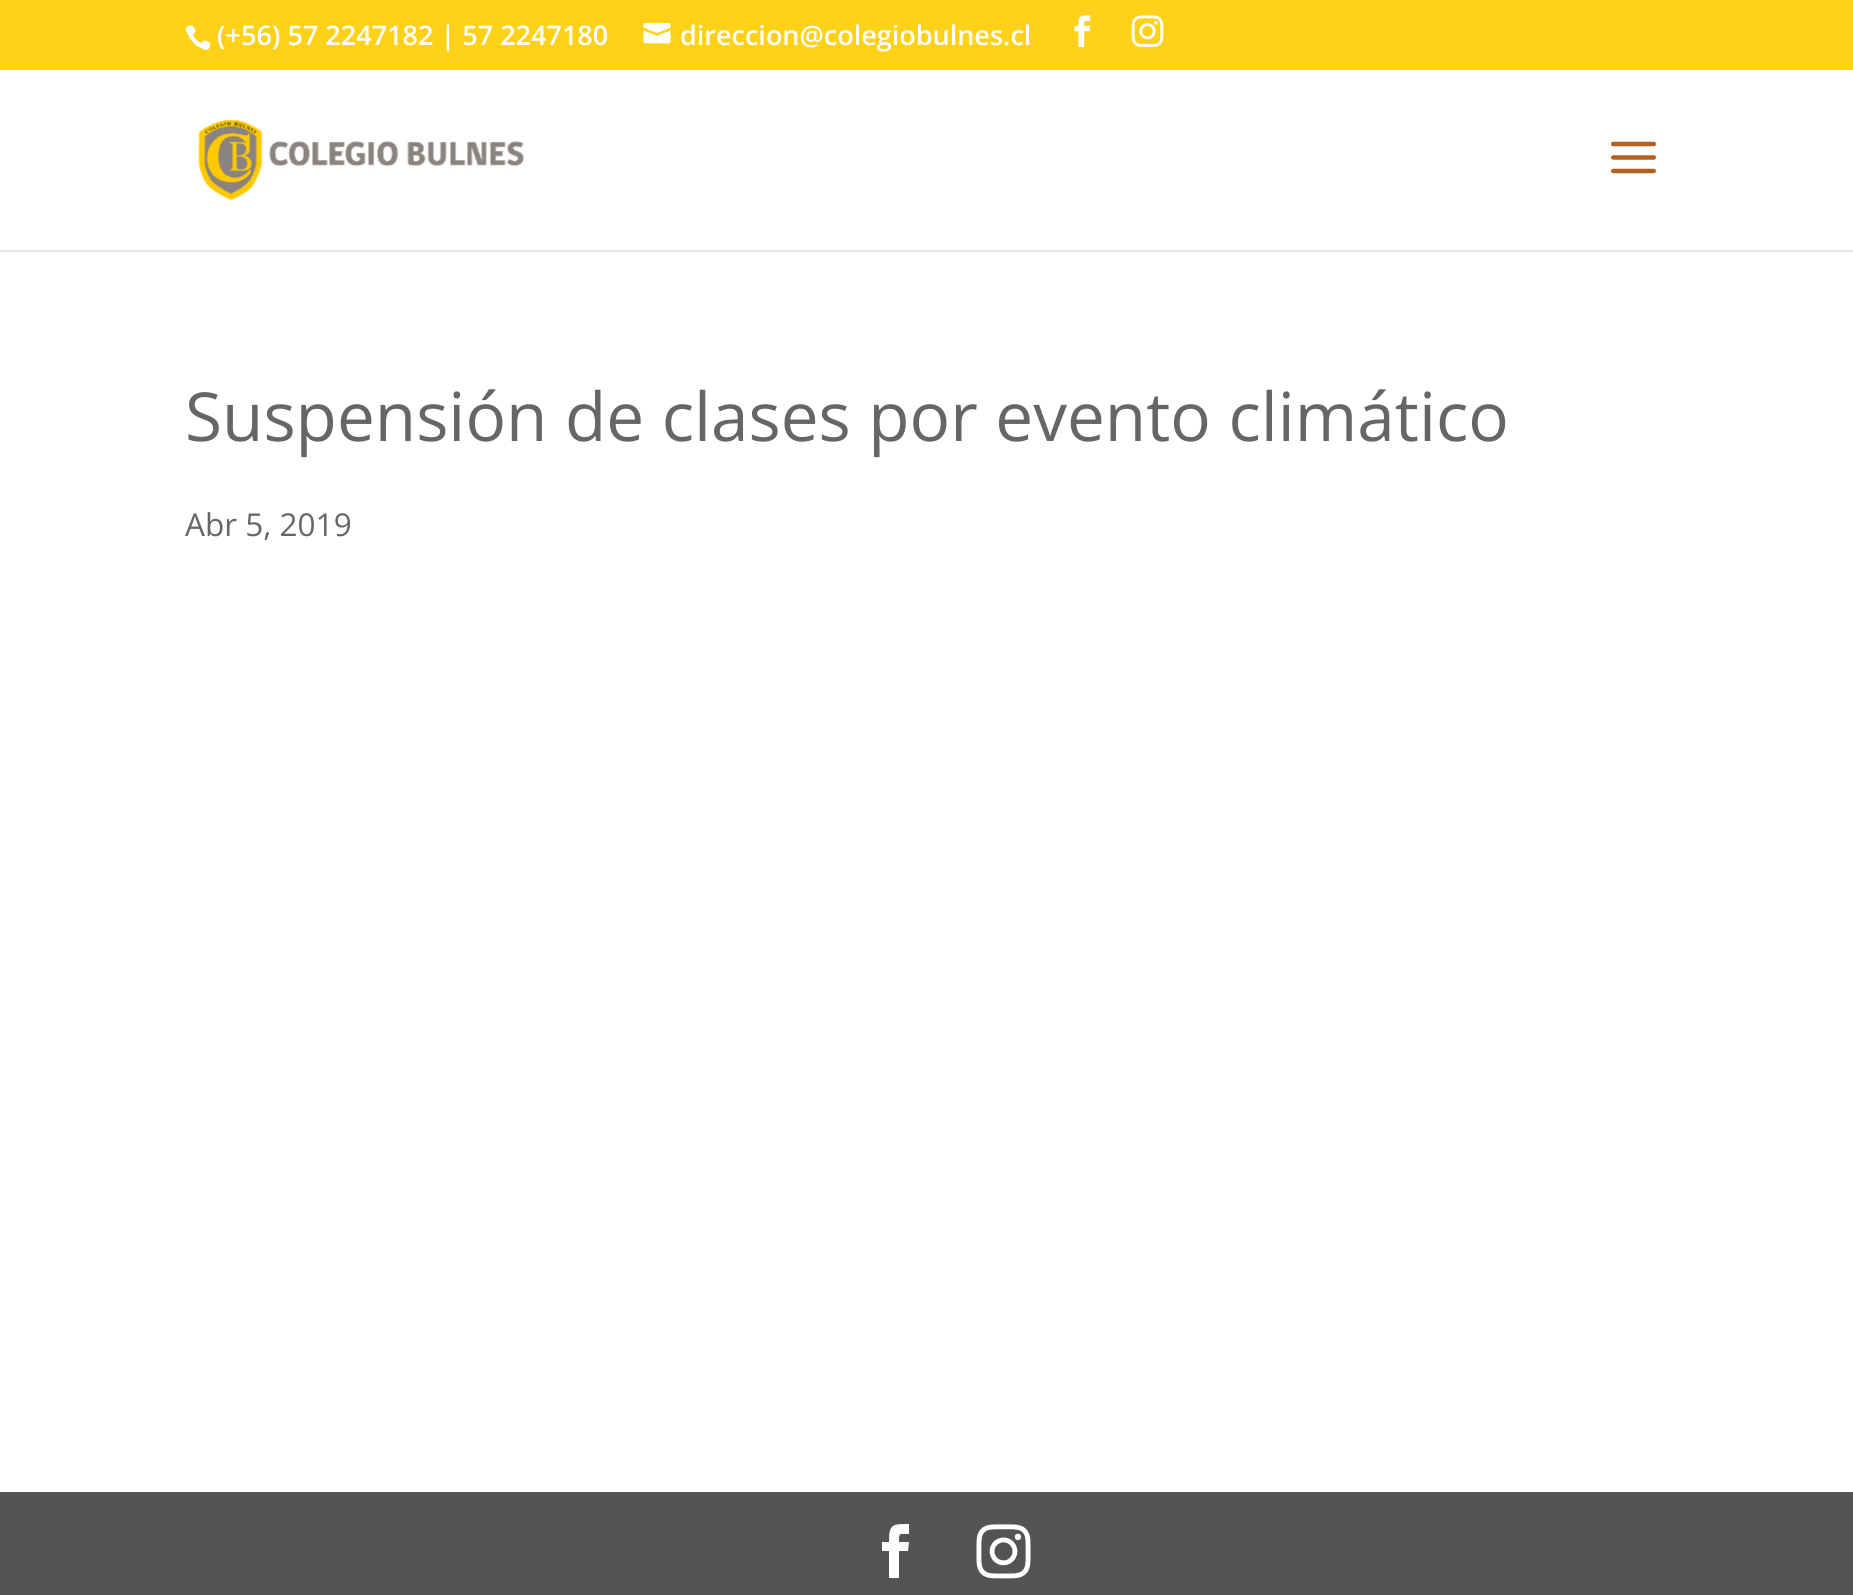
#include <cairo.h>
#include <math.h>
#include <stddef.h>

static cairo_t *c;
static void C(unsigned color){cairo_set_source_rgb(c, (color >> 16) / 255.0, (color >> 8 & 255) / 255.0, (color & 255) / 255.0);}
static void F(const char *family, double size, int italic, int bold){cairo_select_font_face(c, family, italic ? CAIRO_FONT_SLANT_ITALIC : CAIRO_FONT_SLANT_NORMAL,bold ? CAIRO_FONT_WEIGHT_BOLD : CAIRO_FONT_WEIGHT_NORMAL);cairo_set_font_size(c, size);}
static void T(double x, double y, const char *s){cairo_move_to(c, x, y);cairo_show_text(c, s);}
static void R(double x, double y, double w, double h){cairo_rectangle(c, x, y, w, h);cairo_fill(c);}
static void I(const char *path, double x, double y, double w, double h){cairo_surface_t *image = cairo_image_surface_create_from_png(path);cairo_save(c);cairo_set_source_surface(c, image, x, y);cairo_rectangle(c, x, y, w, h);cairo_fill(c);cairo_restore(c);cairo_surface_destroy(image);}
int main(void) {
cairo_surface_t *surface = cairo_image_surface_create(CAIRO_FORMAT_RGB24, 1853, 1595);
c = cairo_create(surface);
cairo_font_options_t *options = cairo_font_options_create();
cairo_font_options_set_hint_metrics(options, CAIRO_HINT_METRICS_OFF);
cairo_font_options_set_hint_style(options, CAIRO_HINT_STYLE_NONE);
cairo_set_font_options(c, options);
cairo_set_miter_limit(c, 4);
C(0xffffff);
cairo_paint(c);
C(0xffd219);
R(0,0,1853,70);
I("1.png",185,25,26,26);
F("Open Sans SemiBold",27,0,0);
C(0xffffff);
T(217,45,"(+56) 57 2247182 | 57 2247180");
I("2.png",643,23,28,21);
T(680,45,"direccion@colegiobulnes.cl");
I("3.png",1074,15,17,32);
I("4.png",1131,15,33,32);
C(0xe6e6e6);
R(0,250,1853,2);
I("5.png",198,119,326,82);
I("6.png",1611,141,45,33);
F("Open Sans",67.5,0,0);
C(0x666666);
T(185,441,"Suspensión de clases por evento climático");
F("Open Sans",31.5,0,0);
T(185,536,"Abr 5, 2019");
C(0x545454);
R(0,1492,1853,103);
C(0xffffff);
cairo_new_path(c);
cairo_move_to(c,889,1578);
cairo_line_to(c,899,1578);
cairo_line_to(c,899,1551);
cairo_line_to(c,908,1551);
cairo_line_to(c,909,1542);
cairo_line_to(c,899,1542);
cairo_curve_to(c,899,1532,899,1534,909,1534);
cairo_line_to(c,909,1524);
cairo_curve_to(c,892,1524,889,1524,889,1542);
cairo_line_to(c,882,1542);
cairo_line_to(c,882,1551);
cairo_line_to(c,889,1551);
cairo_close_path(c);
cairo_fill(c);
I("7.png",976,1524,55,55);
cairo_surface_write_to_png(surface, "o.png");
cairo_font_options_destroy(options);
cairo_destroy(c);
cairo_surface_destroy(surface);
return 0;
}
